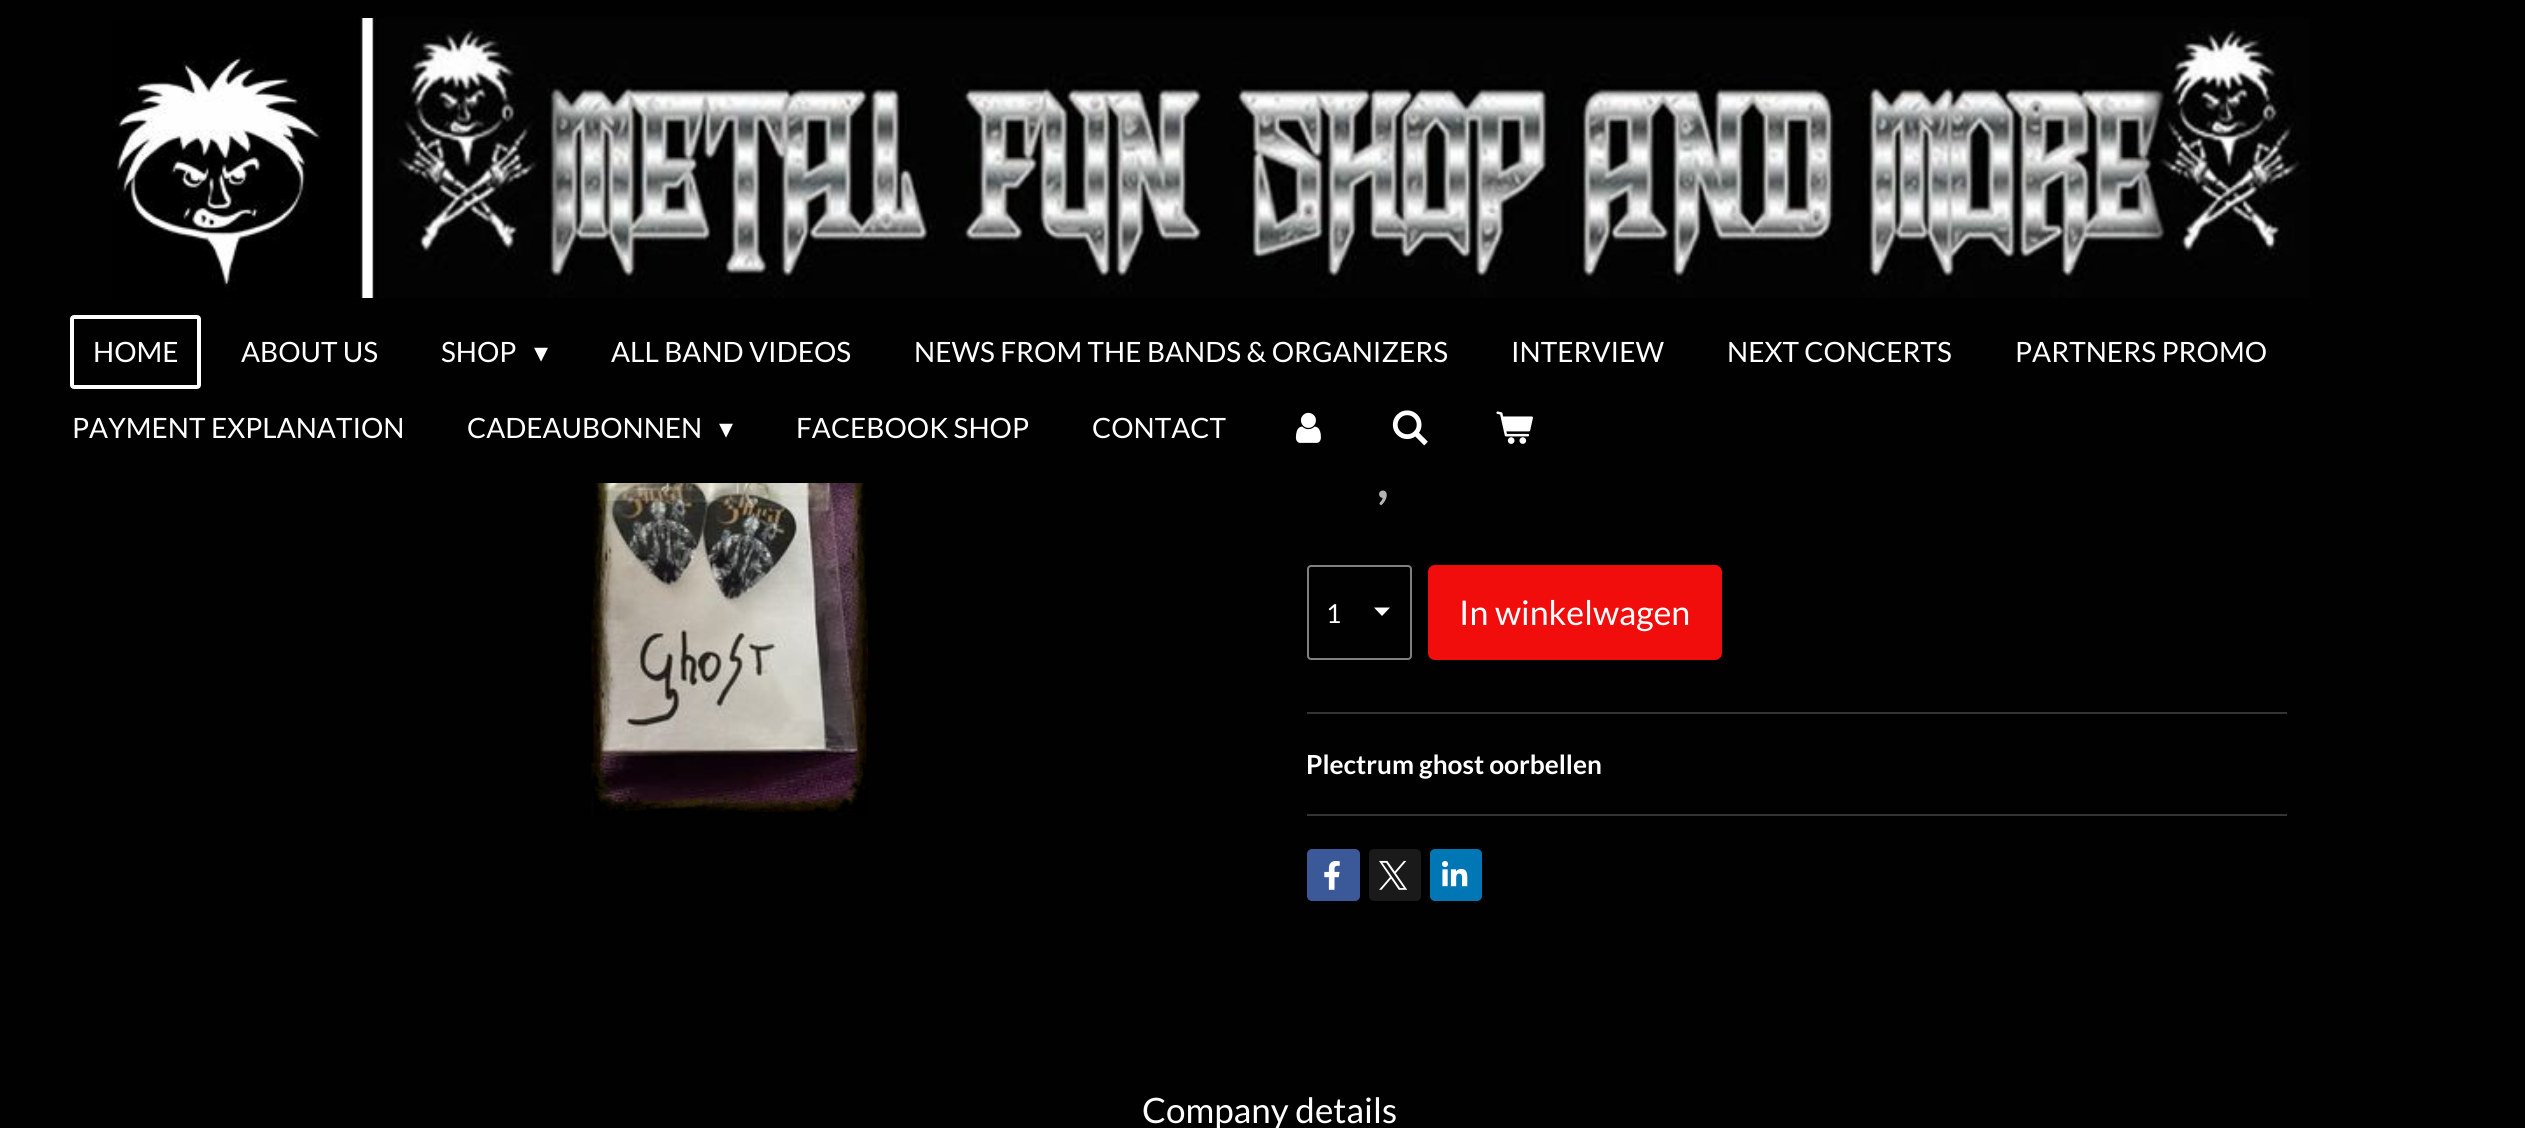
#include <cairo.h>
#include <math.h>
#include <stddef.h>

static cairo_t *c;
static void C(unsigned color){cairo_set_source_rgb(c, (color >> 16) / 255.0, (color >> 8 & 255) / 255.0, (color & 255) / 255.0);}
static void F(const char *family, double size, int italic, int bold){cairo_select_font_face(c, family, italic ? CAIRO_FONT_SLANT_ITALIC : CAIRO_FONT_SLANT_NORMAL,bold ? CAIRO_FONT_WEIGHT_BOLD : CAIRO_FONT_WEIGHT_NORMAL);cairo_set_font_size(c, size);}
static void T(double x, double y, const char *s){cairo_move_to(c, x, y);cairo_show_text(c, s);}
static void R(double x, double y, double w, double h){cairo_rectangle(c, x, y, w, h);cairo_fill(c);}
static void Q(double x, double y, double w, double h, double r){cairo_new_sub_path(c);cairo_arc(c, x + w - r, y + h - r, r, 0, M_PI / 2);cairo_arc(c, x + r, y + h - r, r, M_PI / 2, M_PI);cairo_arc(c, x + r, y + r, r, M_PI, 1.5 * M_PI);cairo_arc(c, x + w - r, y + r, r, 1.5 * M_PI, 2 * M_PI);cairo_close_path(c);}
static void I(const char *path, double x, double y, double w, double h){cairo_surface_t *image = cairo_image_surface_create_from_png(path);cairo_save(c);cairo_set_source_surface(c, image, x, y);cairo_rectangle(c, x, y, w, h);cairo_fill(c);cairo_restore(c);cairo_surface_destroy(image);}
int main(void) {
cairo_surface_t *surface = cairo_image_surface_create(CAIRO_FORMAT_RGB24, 2525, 1128);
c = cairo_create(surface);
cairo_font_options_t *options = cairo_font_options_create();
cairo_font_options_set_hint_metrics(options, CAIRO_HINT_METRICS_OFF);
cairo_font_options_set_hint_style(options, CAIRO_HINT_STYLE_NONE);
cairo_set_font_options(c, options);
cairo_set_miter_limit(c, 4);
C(0x010101);
cairo_paint(c);
I("1.png",112,18,2198,280);
Q(72,317,127,70,2);
C(0xffffff);
cairo_set_line_width(c,4);
cairo_stroke(c);
F("Lato",28,0,0);
T(93,362,"HOME");
T(241,362,"ABOUT US");
T(441,362,"SHOP");
F("DejaVu Sans",28,0,0);
T(534,362,"▾");
F("Lato",28,0,0);
T(611,362,"ALL BAND VIDEOS");
T(914,362,"NEWS FROM THE BANDS & ORGANIZERS");
T(1511,362,"INTERVIEW");
T(1727,362,"NEXT CONCERTS");
T(2015,362,"PARTNERS PROMO");
T(72,438,"PAYMENT EXPLANATION");
T(467,438,"CADEAUBONNEN");
F("DejaVu Sans",28,0,0);
T(719,438,"▾");
F("Lato",28,0,0);
T(796,438,"FACEBOOK SHOP");
T(1092,438,"CONTACT");
I("2.png",1295,412,26,31);
I("3.png",1392,410,36,36);
I("4.png",1496,411,37,33);
I("5.png",591,483,277,333);
F("Lato",52,0,1);
C(0xb3b3b3);
T(1377,498,",");
C(0xffffff);
cairo_new_path(c);
cairo_move_to(c,1382,616);
cairo_line_to(c,1374,607.5);
cairo_line_to(c,1390,607.5);
cairo_close_path(c);
cairo_fill(c);
Q(1308,566,103,93,3);
C(0x808080);
cairo_set_line_width(c,2);
cairo_stroke(c);
F("Lato",26.25,0,0);
C(0xffffff);
T(1326,623,"1");
C(0xf20d0d);
Q(1428,565,294,95,7);
cairo_fill(c);
F("Lato",34,0,0);
C(0xffffff);
T(1459,625,"In winkelwagen");
C(0x343434);
R(1307,712,980,2);
F("Lato",26.25,0,1);
C(0xffffff);
T(1306,774,"Plectrum ghost oorbellen");
C(0x343434);
R(1307,814,980,2);
C(0x3b5998);
Q(1307,849,53,52,5);
cairo_fill(c);
I("6.png",1324,861,16,29);
C(0x1a1a1a);
Q(1369,849,52,52,5);
cairo_fill(c);
I("7.png",1379,860,29,30);
C(0x0077b5);
Q(1430,849,52,52,5);
cairo_fill(c);
I("8.png",1442,861,26,26);
F("Lato",35,0,0);
C(0xffffff);
T(1142,1123,"Company details");
cairo_surface_write_to_png(surface, "o.png");
cairo_font_options_destroy(options);
cairo_destroy(c);
cairo_surface_destroy(surface);
return 0;
}
